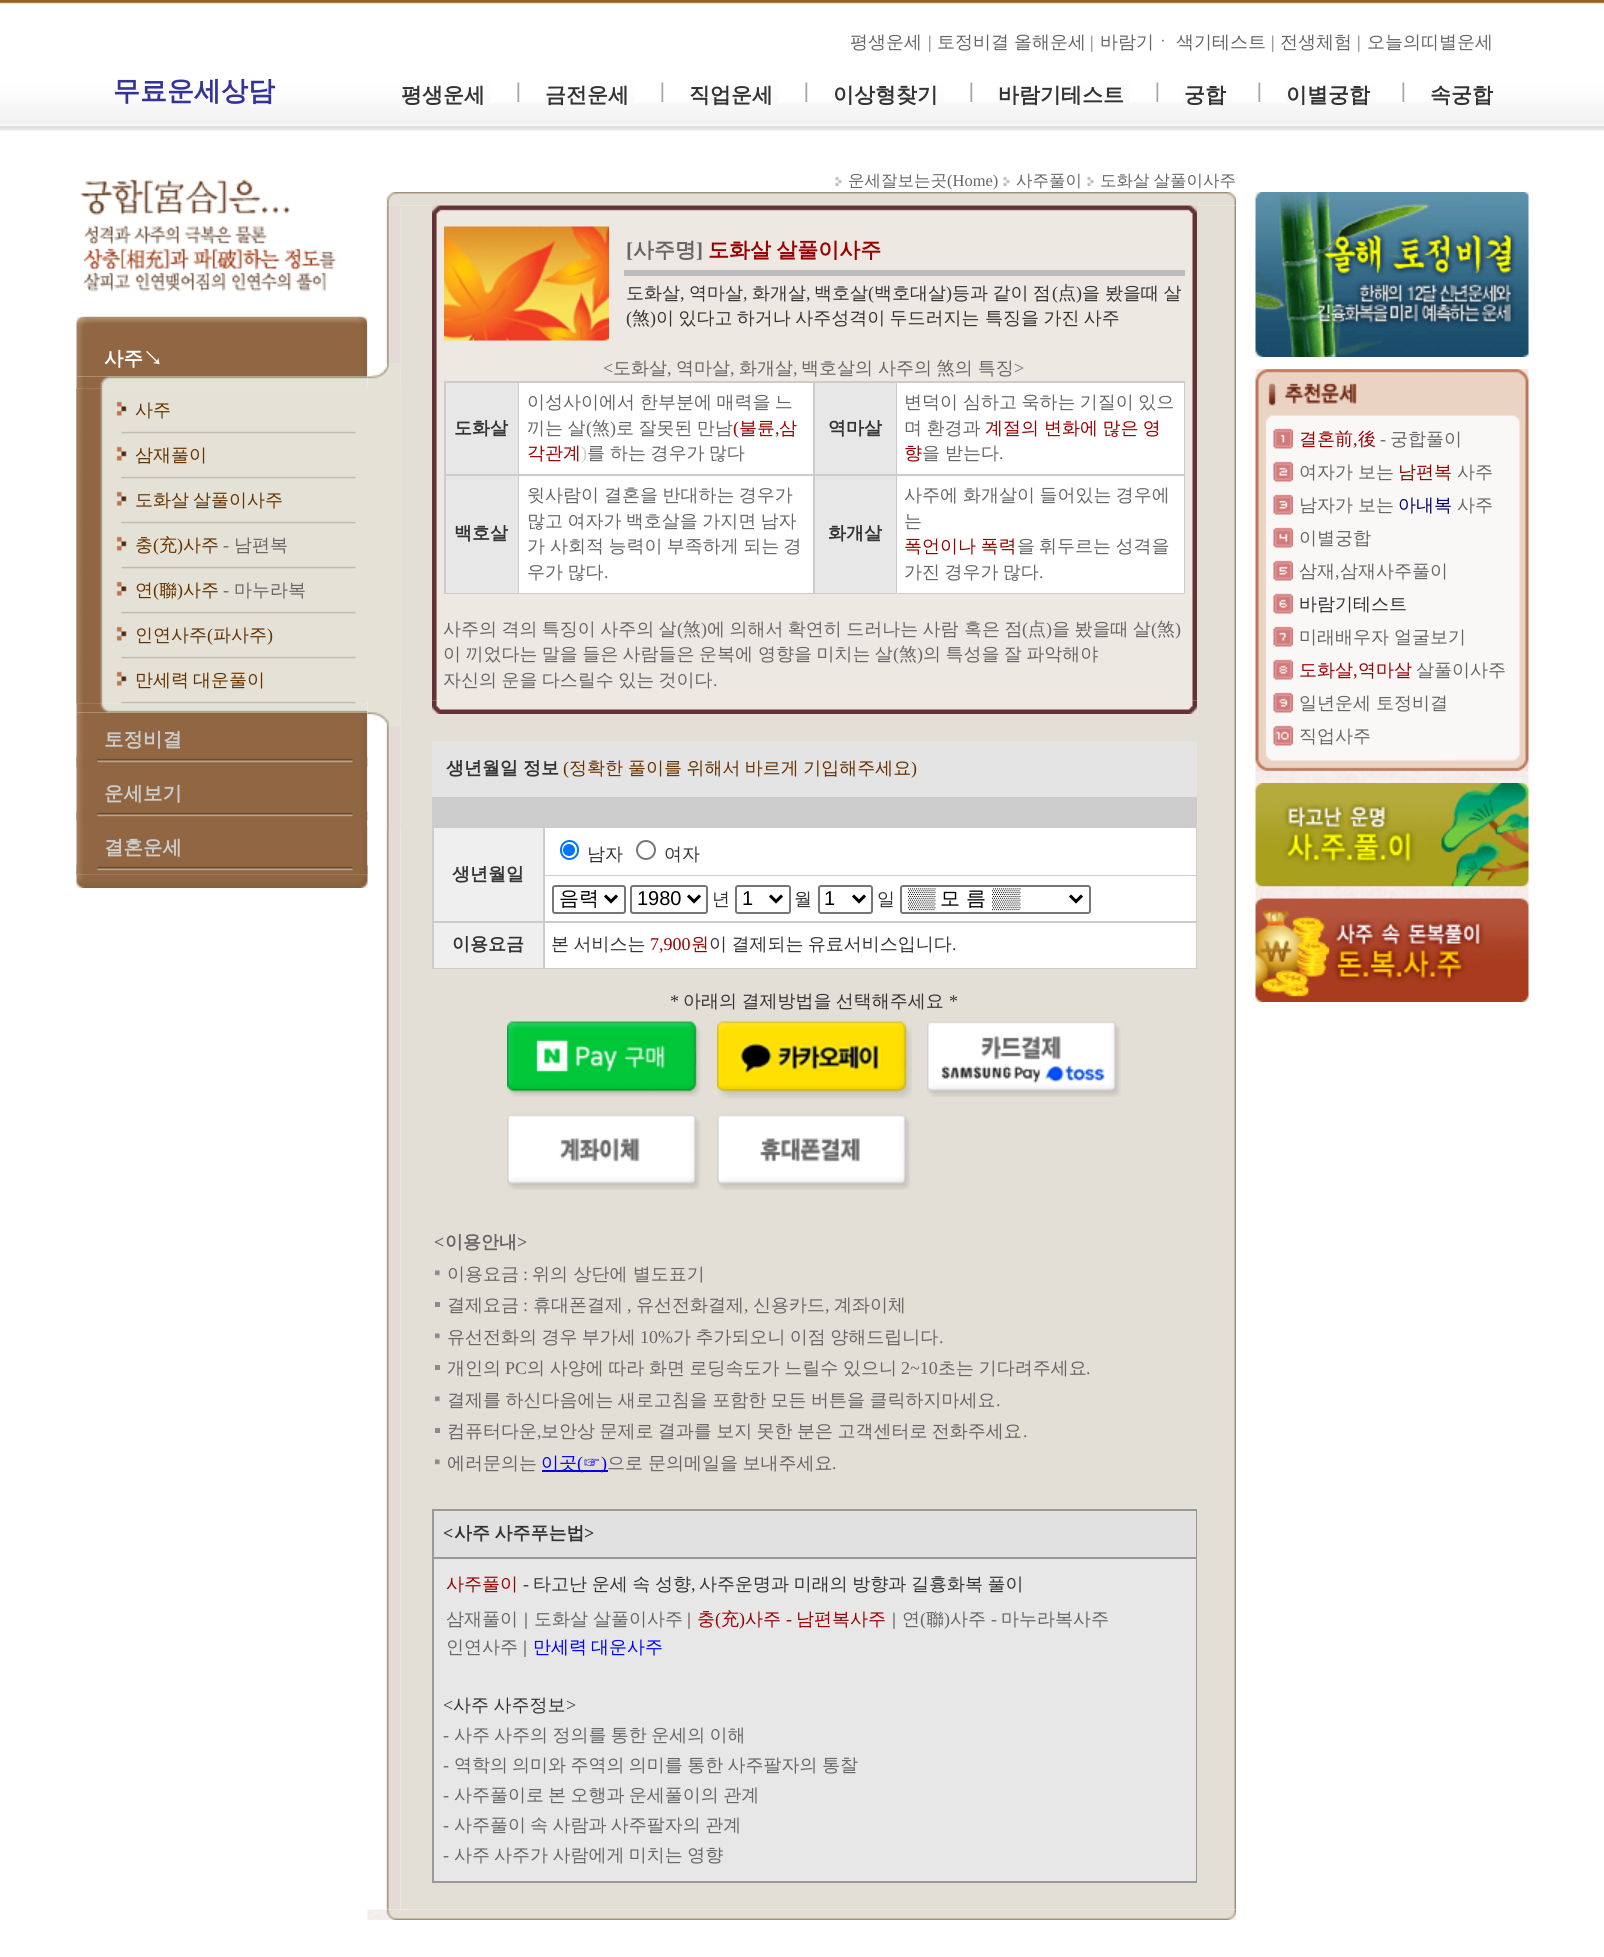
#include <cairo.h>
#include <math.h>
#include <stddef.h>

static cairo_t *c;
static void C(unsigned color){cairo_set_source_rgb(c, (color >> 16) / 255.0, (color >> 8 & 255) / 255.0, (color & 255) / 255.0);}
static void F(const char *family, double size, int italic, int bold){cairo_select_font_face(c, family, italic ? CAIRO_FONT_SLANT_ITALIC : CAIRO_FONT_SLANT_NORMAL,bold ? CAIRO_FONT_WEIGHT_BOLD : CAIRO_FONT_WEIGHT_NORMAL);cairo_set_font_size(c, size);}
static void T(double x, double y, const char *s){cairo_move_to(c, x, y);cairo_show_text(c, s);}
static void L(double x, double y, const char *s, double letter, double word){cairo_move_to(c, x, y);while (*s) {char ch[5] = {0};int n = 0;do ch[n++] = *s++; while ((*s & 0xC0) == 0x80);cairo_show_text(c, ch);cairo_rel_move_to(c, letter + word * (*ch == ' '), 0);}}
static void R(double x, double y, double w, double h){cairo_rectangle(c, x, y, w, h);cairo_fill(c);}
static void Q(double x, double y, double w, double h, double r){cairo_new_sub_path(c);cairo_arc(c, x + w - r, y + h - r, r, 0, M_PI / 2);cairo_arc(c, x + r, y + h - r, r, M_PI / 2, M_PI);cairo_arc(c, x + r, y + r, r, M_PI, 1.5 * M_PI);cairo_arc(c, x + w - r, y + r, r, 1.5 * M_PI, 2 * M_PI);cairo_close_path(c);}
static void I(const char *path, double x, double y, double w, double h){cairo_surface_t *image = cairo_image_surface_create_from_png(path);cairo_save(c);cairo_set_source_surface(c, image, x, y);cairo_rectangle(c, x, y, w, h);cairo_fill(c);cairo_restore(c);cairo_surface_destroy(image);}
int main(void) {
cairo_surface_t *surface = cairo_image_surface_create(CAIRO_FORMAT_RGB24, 1604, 1957);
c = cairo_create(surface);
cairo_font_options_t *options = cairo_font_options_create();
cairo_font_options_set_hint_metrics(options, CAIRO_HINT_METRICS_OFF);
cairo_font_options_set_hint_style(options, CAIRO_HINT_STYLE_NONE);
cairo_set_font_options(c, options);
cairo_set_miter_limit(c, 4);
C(0xffffff);
cairo_paint(c);
I("1.png",0,0,1604,131);
F("WenQuanYi Zen Hei Medium",18,0,0);
C(0x666666);
T(850,48,"평생운세");
F("Liberation Serif",18,0,0);
T(928,48,"|");
F("WenQuanYi Zen Hei Medium",18,0,0);
T(937,48,"토정비결");
T(1014,48,"올해운세");
F("Liberation Serif",18,0,0);
T(1090,48,"|");
F("WenQuanYi Zen Hei Medium",18,0,0);
T(1100,48,"바람기ㆍ");
T(1176,48,"색기테스트");
F("Liberation Serif",18,0,0);
T(1271,48,"|");
F("WenQuanYi Zen Hei Medium",18,0,0);
T(1280,48,"전생체험");
F("Liberation Serif",18,0,0);
T(1357,48,"|");
F("WenQuanYi Zen Hei Medium",18,0,0);
T(1367,48,"오늘의띠별운세");
F("WenQuanYi Zen Hei",27,0,1);
C(0x333399);
T(113,100,"무료운세상담");
F("WenQuanYi Zen Hei",21,0,1);
C(0x333333);
T(401,102,"평생운세");
I("2.png",491,82,53,20);
T(545,102,"금전운세");
I("3.png",635,82,53,20);
T(689,102,"직업운세");
I("2.png",779,82,53,20);
T(833,102,"이상형찾기");
I("2.png",944,82,53,20);
T(998,102,"바람기테스트");
I("3.png",1130,82,53,20);
T(1184,102,"궁합");
I("2.png",1232,82,53,20);
T(1286,102,"이별궁합");
I("3.png",1376,82,53,20);
T(1430,102,"속궁합");
I("5.png",76,316,292,61);
I("4.png",77,179,290,138);
F("WenQuanYi Zen Hei",19.5,0,1);
C(0xffffff);
T(104,365,"사주↘");
I("7.png",76,388,292,316);
I("8.png",76,388,291,46);
I("9.png",76,433,291,46);
I("9.png",76,478,291,46);
I("9.png",76,523,291,46);
I("9.png",76,568,291,46);
I("9.png",76,613,291,46);
I("10.png",76,658,292,46);
I("12.png",76,712,292,163);
I("19.png",367,205,34,1705);
I("6.png",76,376,292,13);
F("WenQuanYi Zen Hei Medium",18,0,0);
C(0x663300);
T(135,416,"사주");
T(135,461,"삼재풀이");
T(135,506,"도화살");
T(193,506,"살풀이사주");
T(135,551,"충");
F("Liberation Serif",18,0,0);
T(153,551,"(");
F("WenQuanYi Zen Hei Medium",18,0,0);
T(159,551,"充");
F("Liberation Serif",18,0,0);
T(177,551,")");
F("WenQuanYi Zen Hei Medium",18,0,0);
T(183,551,"사주");
F("Liberation Serif",18,0,0);
C(0x666666);
T(223,551,"-");
F("WenQuanYi Zen Hei Medium",18,0,0);
T(234,551,"남편복");
C(0x663300);
T(135,596,"연");
F("Liberation Serif",18,0,0);
T(153,596,"(");
F("WenQuanYi Zen Hei Medium",18,0,0);
T(159,596,"聯");
F("Liberation Serif",18,0,0);
T(177,596,")");
F("WenQuanYi Zen Hei Medium",18,0,0);
T(183,596,"사주");
F("Liberation Serif",18,0,0);
C(0x666666);
T(223,596,"-");
F("WenQuanYi Zen Hei Medium",18,0,0);
T(234,596,"마누라복");
C(0x663300);
T(135,641,"인연사주");
F("Liberation Serif",18,0,0);
T(207,641,"(");
F("WenQuanYi Zen Hei Medium",18,0,0);
T(213,641,"파사주");
F("Liberation Serif",18,0,0);
T(267,641,")");
F("WenQuanYi Zen Hei Medium",18,0,0);
T(135,686,"만세력");
T(193,686,"대운풀이");
I("11.png",76,703,292,10);
F("WenQuanYi Zen Hei",19.5,0,1);
C(0xcccccc);
T(104,746,"토정비결");
I("13.png",76,757,292,10);
T(104,800,"운세보기");
I("14.png",76,811,292,10);
T(104,854,"결혼운세");
I("15.png",76,865,292,10);
I("16.png",76,874,292,14);
I("17.png",835,176,7,10);
F("WenQuanYi Zen Hei Medium",16.5,0,0);
C(0x666666);
T(848,186,"운세잘보는곳");
F("Liberation Serif",16.5,0,0);
T(947,186,"(Home)");
I("17.png",1003,176,7,10);
F("WenQuanYi Zen Hei Medium",16.5,0,0);
T(1016,186,"사주풀이");
I("17.png",1087,176,7,10);
L(1100,186,"도화살 살풀이사주",0,-1);
I("24.png",400,205,836,1705);
I("18.png",386,192,850,14);
I("20.png",367,205,34,158);
I("21.png",367,363,34,24);
C(0xe4e1d6);
R(367,387,34,315);
I("22.png",367,702,34,26);
I("23.png",367,727,34,100);
I("25.png",432,205,765,14);
I("26.png",432,219,765,482);
I("27.png",444,226,165,115);
F("Liberation Serif",21,0,1);
C(0x666666);
T(626,257,"[");
F("WenQuanYi Zen Hei",21,0,1);
T(633,257,"사주명");
F("Liberation Serif",21,0,1);
T(696,257,"]");
F("WenQuanYi Zen Hei",21,0,1);
C(0x990000);
L(708,257,"도화살 살풀이사주",0,-1);
C(0xbbbbbb);
R(624,270,561,6);
F("WenQuanYi Zen Hei Medium",18,0,0);
C(0x333333);
T(626,299,"도화살");
F("Liberation Serif",18,0,0);
T(680,299,",");
F("WenQuanYi Zen Hei Medium",18,0,0);
T(689,299,"역마살");
F("Liberation Serif",18,0,0);
T(743,299,",");
F("WenQuanYi Zen Hei Medium",18,0,0);
T(752,299,"화개살");
F("Liberation Serif",18,0,0);
T(806,299,",");
F("WenQuanYi Zen Hei Medium",18,0,0);
T(814,299,"백호살");
F("Liberation Serif",18,0,0);
T(868,299,"(");
F("WenQuanYi Zen Hei Medium",18,0,0);
T(874,299,"백호대살");
F("Liberation Serif",18,0,0);
T(946,299,")");
F("WenQuanYi Zen Hei Medium",18,0,0);
L(952,299,"등과 같이 점",0,-1);
F("Liberation Serif",18,0,0);
T(1052,299,"(");
F("WenQuanYi Zen Hei Medium",18,0,0);
T(1058,299,"点");
F("Liberation Serif",18,0,0);
T(1076,299,")");
F("WenQuanYi Zen Hei Medium",18,0,0);
T(1082,299,"을");
L(1105,299,"봤을때 살",0,-1);
F("Liberation Serif",18,0,0);
T(626,324,"(");
F("WenQuanYi Zen Hei Medium",18,0,0);
T(632,324,"煞");
F("Liberation Serif",18,0,0);
T(650,324,")");
F("WenQuanYi Zen Hei Medium",18,0,0);
L(656,324,"이 있다고 하거나 사주성격이 두드러지는",0,-1);
L(985,324,"특징을 가진 사주",0,-1);
F("Liberation Serif",18,0,0);
C(0x666666);
T(603,374,"<");
F("WenQuanYi Zen Hei Medium",18,0,0);
T(613,374,"도화살");
T(676,374,"역마살");
T(739,374,"화개살");
L(801,374,"백호살의 사주의 煞의 특징",0,-.5);
F("Liberation Serif",18,0,0);
T(1014,374,">");
T(667,374,",");
T(730,374,",");
T(793,374,",");
C(0xcccccc);
R(444,381,741,213);
C(0xe7e7e7);
R(446,383,72,91);
F("WenQuanYi Zen Hei",18,0,1);
C(0x333333);
T(454,434,"도화살");
C(0xffffff);
R(519,383,294,91);
F("WenQuanYi Zen Hei Medium",18,0,0);
C(0x666666);
T(527,408,"이성사이에서");
L(640,408,"한부분에 매력을 느",0,-1);
L(527,434,"끼는 살",0,-1);
F("Liberation Serif",18,0,0);
T(586,434,"(");
F("WenQuanYi Zen Hei Medium",18,0,0);
T(592,434,"煞");
F("Liberation Serif",18,0,0);
T(610,434,")");
F("WenQuanYi Zen Hei Medium",18,0,0);
L(616,434,"로 잘못된 만남",0,-1);
F("Liberation Serif",18,0,0);
C(0x990000);
T(733,434,"(");
F("WenQuanYi Zen Hei Medium",18,0,0);
T(739,434,"불륜");
F("Liberation Serif",18,0,0);
T(775,434,",");
F("WenQuanYi Zen Hei Medium",18,0,0);
T(779,434,"삼");
T(527,459,"각관계");
F("Liberation Serif",18,0,0);
C(0xcccccc);
T(581,459,")");
F("WenQuanYi Zen Hei Medium",18,0,0);
C(0x666666);
T(587,459,"를");
L(610,459,"하는 경우가 많다",0,-1);
C(0xe7e7e7);
R(815,383,81,91);
F("WenQuanYi Zen Hei",18,0,1);
C(0x333333);
T(828,434,"역마살");
C(0xffffff);
R(897,383,287,91);
F("WenQuanYi Zen Hei Medium",18,0,0);
C(0x666666);
T(904,408,"변덕이");
L(963,408,"심하고 욱하는 기질이 있으",0,-1);
L(904,434,"며 환경과",0,-1);
C(0x990000);
T(985,434,"계절의");
L(1044,434,"변화에 많은 영",0,-1);
T(904,459,"향");
C(0x666666);
T(922,459,"을");
T(945,459,"받는다");
F("Liberation Serif",18,0,0);
T(999,459,".");
C(0xe7e7e7);
R(446,476,72,117);
F("WenQuanYi Zen Hei",18,0,1);
C(0x333333);
T(454,539,"백호살");
C(0xffffff);
R(519,476,294,117);
F("WenQuanYi Zen Hei Medium",18,0,0);
C(0x666666);
T(527,501,"윗사람이");
L(604,501,"결혼을 반대하는 경우가",0,-1);
L(527,527,"많고 여자가 백호살을 가지면 남자",0,-1);
T(527,552,"가");
L(550,552,"사회적 능력이 부족하게 되는 경",0,-1);
L(527,578,"우가 많다",0,-1);
F("Liberation Serif",18,0,0);
T(604,578,".");
C(0xe7e7e7);
R(815,476,81,117);
F("WenQuanYi Zen Hei",18,0,1);
C(0x333333);
T(828,539,"화개살");
C(0xffffff);
R(897,476,287,117);
F("WenQuanYi Zen Hei Medium",18,0,0);
C(0x666666);
T(904,501,"사주에");
L(963,501,"화개살이 들어있는 경우에",0,-1);
T(904,527,"는");
C(0x990000);
L(904,552,"폭언이나 폭력",0,-1);
C(0x666666);
T(1017,552,"을");
L(1039,552,"휘두르는 성격을",0,-1);
L(904,578,"가진 경우가 많다",0,-1);
F("Liberation Serif",18,0,0);
T(1039,578,".");
F("WenQuanYi Zen Hei Medium",18,0,0);
L(443,635,"사주의 격의 특징이 사주의 살",0,-1);
F("Liberation Serif",18,0,0);
T(677,635,"(");
F("WenQuanYi Zen Hei Medium",18,0,0);
T(683,635,"煞");
F("Liberation Serif",18,0,0);
T(701,635,")");
F("WenQuanYi Zen Hei Medium",18,0,0);
L(707,635,"에 의해서 확연히 드러나는 사람",0,-1);
L(964,635,"혹은 점",0,-1);
F("Liberation Serif",18,0,0);
T(1022,635,"(");
F("WenQuanYi Zen Hei Medium",18,0,0);
T(1028,635,"点");
F("Liberation Serif",18,0,0);
T(1046,635,")");
F("WenQuanYi Zen Hei Medium",18,0,0);
L(1052,635,"을 봤을때 살",0,-1);
F("Liberation Serif",18,0,0);
T(1151,635,"(");
F("WenQuanYi Zen Hei Medium",18,0,0);
T(1157,635,"煞");
F("Liberation Serif",18,0,0);
T(1175,635,")");
F("WenQuanYi Zen Hei Medium",18,0,0);
L(443,660,"이 끼었다는 말을 들은 사람들은 운복에",0,-1);
L(758,660,"영향을 미치는 살",0,-1);
F("Liberation Serif",18,0,0);
T(893,660,"(");
F("WenQuanYi Zen Hei Medium",18,0,0);
T(899,660,"煞");
F("Liberation Serif",18,0,0);
T(917,660,")");
F("WenQuanYi Zen Hei Medium",18,0,0);
L(923,660,"의 특성을 잘 파악해야",0,-1);
L(443,686,"자신의 운을 다스릴수 있는 것이다",0,-1);
F("Liberation Serif",18,0,0);
T(713,686,".");
I("28.png",432,700,765,14);
C(0xe4e4e4);
R(432,741,765,56);
F("WenQuanYi Zen Hei",18,0,1);
C(0x333333);
T(446,774,"생년월일");
T(523,774,"정보");
F("Liberation Serif",18,0,0);
C(0x663300);
T(563,774,"(");
F("WenQuanYi Zen Hei Medium",18,0,0);
T(569,774,"정확한");
L(628,774,"풀이를 위해서 바르게 기입해주세요",0,-1);
F("Liberation Serif",18,0,0);
T(911,774,")");
C(0xcccccc);
R(432,797,765,172);
C(0xffffff);
R(545,828,651,47);
Q(561,841,17,18,8.5);
C(0x0075ff);
cairo_stroke(c);
cairo_arc(c,569,850,6,0,2 * M_PI);
cairo_fill(c);
F("WenQuanYi Zen Hei Medium",18,0,0);
C(0x333333);
T(587,860,"남자");
cairo_new_path(c);
cairo_arc(c,646,850,9,0,2 * M_PI);
C(0x767676);
cairo_stroke(c);
C(0x333333);
T(664,860,"여자");
C(0xefefef);
R(434,828,109,93);
F("WenQuanYi Zen Hei",18,0,1);
C(0x333333);
T(452,880,"생년월일");
C(0xffffff);
R(545,876,651,45);
Q(553,886,72,27,2);
C(0x767676);
cairo_stroke(c);
cairo_new_path(c);
cairo_move_to(c,605,895.5);
cairo_line_to(c,611,901.5);
cairo_line_to(c,617,895.5);
C(0x000000);
cairo_set_line_width(c,3);
cairo_stroke(c);
F("WenQuanYi Zen Hei Medium",20,0,0);
T(559,905,"음력");
Q(631,886,76,27,2);
C(0x767676);
cairo_set_line_width(c,2);
cairo_stroke(c);
cairo_new_path(c);
cairo_move_to(c,688,895.5);
cairo_line_to(c,694,901.5);
cairo_line_to(c,700,895.5);
C(0x000000);
cairo_set_line_width(c,3);
cairo_stroke(c);
F("Liberation Sans",20,0,0);
T(637,905,"1980");
F("WenQuanYi Zen Hei Medium",18,0,0);
C(0x333333);
T(712,905,"년");
Q(736,886,54,27,2);
C(0x767676);
cairo_set_line_width(c,2);
cairo_stroke(c);
cairo_new_path(c);
cairo_move_to(c,770,895.5);
cairo_line_to(c,776,901.5);
cairo_line_to(c,782,895.5);
C(0x000000);
cairo_set_line_width(c,3);
cairo_stroke(c);
F("Liberation Sans",20,0,0);
T(742,905,"1");
F("WenQuanYi Zen Hei Medium",18,0,0);
C(0x333333);
T(794,905,"월");
Q(819,886,53,27,2);
C(0x767676);
cairo_set_line_width(c,2);
cairo_stroke(c);
cairo_new_path(c);
cairo_move_to(c,853,895.5);
cairo_line_to(c,859,901.5);
cairo_line_to(c,865,895.5);
C(0x000000);
cairo_set_line_width(c,3);
cairo_stroke(c);
F("Liberation Sans",20,0,0);
T(824,905,"1");
F("WenQuanYi Zen Hei Medium",18,0,0);
C(0x333333);
T(877,905,"일");
Q(901,886,189,27,2);
C(0x767676);
cairo_set_line_width(c,2);
cairo_stroke(c);
cairo_new_path(c);
cairo_move_to(c,1070,895.5);
cairo_line_to(c,1076,901.5);
cairo_line_to(c,1082,895.5);
C(0x000000);
cairo_set_line_width(c,3);
cairo_stroke(c);
cairo_save(c);
cairo_rectangle(c,908,887,157,25);
cairo_clip(c);
F("Liberation Sans",20,0,0);
T(907,905,"▒▒");
cairo_restore(c);
F("WenQuanYi Zen Hei Medium",20,0,0);
T(940,905,"모 름");
F("Liberation Sans",20,0,0);
T(992,905,"▒▒");
C(0xefefef);
R(434,923,109,45);
F("WenQuanYi Zen Hei",18,0,1);
C(0x333333);
T(452,950,"이용요금");
C(0xffffff);
R(545,923,651,45);
F("WenQuanYi Zen Hei Medium",18,0,0);
C(0x333333);
L(551,950,"본 서비스는",0,-1);
F("Liberation Serif",18,0,0);
C(0x990000);
T(650,950,"7,900");
F("WenQuanYi Zen Hei Medium",18,0,0);
T(691,950,"원");
C(0x333333);
L(709,950,"이 결제되는 유료서비스입니다",0,-1);
F("Liberation Serif",18,0,0);
T(952,950,".");
T(670,1007,"*");
F("WenQuanYi Zen Hei Medium",18,0,0);
L(683,1007,"아래의 결제방법을 선택해주세요",0,-1);
F("Liberation Serif",18,0,0);
T(949,1007,"*");
I("29.png",507,1021,194,76);
I("30.png",717,1021,195,78);
I("31.png",927,1021,194,76);
I("32.png",507,1114,194,76);
I("33.png",717,1114,194,76);
F("Liberation Serif",18,0,1);
C(0x666666);
T(434,1248,"<");
F("WenQuanYi Zen Hei",18,0,1);
T(445,1248,"이용안내");
F("Liberation Serif",18,0,1);
T(517,1248,">");
I("34.png",435,1270,5,6);
F("WenQuanYi Zen Hei Medium",18,0,0);
T(447,1280,"이용요금");
F("Liberation Serif",18,0,0);
T(523,1280,":");
F("WenQuanYi Zen Hei Medium",18,0,0);
T(532,1280,"위의 상단에 별도표기");
C(0x8c8a8c);
R(435,1302,5,5);
C(0x666666);
T(447,1311,"결제요금");
F("Liberation Serif",18,0,0);
T(523,1311,":");
F("WenQuanYi Zen Hei Medium",18,0,0);
T(533,1311,"휴대폰결제");
F("Liberation Serif",18,0,0);
T(627,1311,",");
F("WenQuanYi Zen Hei Medium",18,0,0);
T(636,1311,"유선전화결제");
F("Liberation Serif",18,0,0);
T(744,1311,",");
F("WenQuanYi Zen Hei Medium",18,0,0);
T(753,1311,"신용카드");
F("Liberation Serif",18,0,0);
T(825,1311,",");
F("WenQuanYi Zen Hei Medium",18,0,0);
T(834,1311,"계좌이체");
I("34.png",435,1333,5,6);
L(447,1343,"유선전화의 경우 부가세",0,-1);
F("Liberation Serif",18,0,0);
T(640,1343,"10%");
F("WenQuanYi Zen Hei Medium",18,0,0);
L(673,1343,"가 추가되오니 이점 양해드립니다",0,-1);
F("Liberation Serif",18,0,0);
T(939,1343,".");
C(0x8c8a8c);
R(435,1365,5,5);
F("WenQuanYi Zen Hei Medium",18,0,0);
C(0x666666);
T(447,1374,"개인의");
F("Liberation Serif",18,0,0);
T(505,1374,"PC");
F("WenQuanYi Zen Hei Medium",18,0,0);
L(527,1374,"의 사양에 따라 화면 로딩속도가 느릴수 있으니",0,-.75);
F("Liberation Serif",18,0,0);
T(901,1374,"2~10");
F("WenQuanYi Zen Hei Medium",18,0,0);
L(938,1374,"초는 기다려주세요",0,-.75);
F("Liberation Serif",18,0,0);
T(1086,1374,".");
I("34.png",435,1396,5,6);
F("WenQuanYi Zen Hei Medium",18,0,0);
L(447,1406,"결제를 하신다음에는 새로고침을 포함한 모든 버튼을 클릭하지마세요",0,-1);
F("Liberation Serif",18,0,0);
T(996,1406,".");
C(0x8c8a8c);
R(435,1428,5,5);
F("WenQuanYi Zen Hei Medium",18,0,0);
C(0x666666);
T(447,1437,"컴퓨터다운");
F("Liberation Serif",18,0,0);
T(537,1437,",");
F("WenQuanYi Zen Hei Medium",18,0,0);
L(541,1437,"보안상 문제로 결과를 보지 못한 분은 고객센터로 전화주세요",0,-1);
F("Liberation Serif",18,0,0);
T(1023,1437,".");
I("34.png",435,1459,5,6);
F("WenQuanYi Zen Hei Medium",18,0,0);
T(447,1469,"에러문의는");
C(0x0000ee);
R(542,1470,66,2);
T(541,1469,"이곳");
F("Liberation Serif",18,0,0);
T(577,1469,"(");
F("WenQuanYi Zen Hei Medium",18,0,0);
T(583,1469,"☞");
F("Liberation Serif",18,0,0);
T(601,1469,")");
F("WenQuanYi Zen Hei Medium",18,0,0);
C(0x666666);
T(607,1469,"으로");
L(648,1469,"문의메일을 보내주세요",0,-1);
F("Liberation Serif",18,0,0);
T(832,1469,".");
C(0x999999);
R(432,1509,765,374);
C(0xe1e1e1);
R(434,1511,762,46);
F("Liberation Serif",18,0,1);
C(0x333333);
T(443,1539,"<");
F("WenQuanYi Zen Hei",18,0,1);
L(454,1539,"사주 사주푸는법",0,-1);
F("Liberation Serif",18,0,1);
T(584,1539,">");
C(0xe7e7e7);
R(434,1559,762,322);
F("WenQuanYi Zen Hei Medium",18,0,0);
C(0x990000);
T(446,1590,"사주풀이");
F("Liberation Serif",18,0,0);
C(0x333333);
T(523,1590,"-");
F("WenQuanYi Zen Hei Medium",18,0,0);
L(533,1590,"타고난 운세 속 성향",0,-.75);
L(699,1590,"사주운명과 미래의 방향과 길흉화복 풀이",0,-.75);
F("Liberation Serif",18,0,0);
T(691,1590,",");
F("WenQuanYi Zen Hei Medium",18,0,0);
C(0x666666);
T(446,1625,"삼재풀이");
F("Liberation Serif",18,0,1);
T(524,1625,"|");
F("WenQuanYi Zen Hei Medium",18,0,0);
T(534,1625,"도화살");
T(593,1625,"살풀이사주");
F("Liberation Serif",18,0,1);
T(687,1625,"|");
F("WenQuanYi Zen Hei Medium",18,0,0);
C(0x990000);
T(697,1625,"충");
F("Liberation Serif",18,0,0);
T(715,1625,"(");
F("WenQuanYi Zen Hei Medium",18,0,0);
T(721,1625,"充");
F("Liberation Serif",18,0,0);
T(739,1625,")");
F("WenQuanYi Zen Hei Medium",18,0,0);
T(745,1625,"사주");
F("Liberation Serif",18,0,0);
T(786,1625,"-");
F("WenQuanYi Zen Hei Medium",18,0,0);
T(796,1625,"남편복사주");
F("Liberation Serif",18,0,1);
C(0x666666);
T(892,1625,"|");
F("WenQuanYi Zen Hei Medium",18,0,0);
T(902,1625,"연");
F("Liberation Serif",18,0,0);
T(920,1625,"(");
F("WenQuanYi Zen Hei Medium",18,0,0);
T(926,1625,"聯");
F("Liberation Serif",18,0,0);
T(944,1625,")");
F("WenQuanYi Zen Hei Medium",18,0,0);
T(950,1625,"사주");
F("Liberation Serif",18,0,0);
T(991,1625,"-");
F("WenQuanYi Zen Hei Medium",18,0,0);
T(1001,1625,"마누라복사주");
T(446,1653,"인연사주");
F("Liberation Serif",18,0,1);
T(523,1653,"|");
F("WenQuanYi Zen Hei Medium",18,0,0);
C(0x0000ff);
T(533,1653,"만세력");
T(591,1653,"대운사주");
F("Liberation Serif",18,0,0);
C(0x333333);
T(443,1711,"<");
F("WenQuanYi Zen Hei Medium",18,0,0);
L(453,1711,"사주 사주정보",0,-1);
F("Liberation Serif",18,0,0);
T(566,1711,">");
C(0x666666);
T(443,1741,"-");
F("WenQuanYi Zen Hei Medium",18,0,0);
T(454,1741,"사주");
L(494,1741,"사주의 정의를 통한 운세의 이해",0,-1);
F("Liberation Serif",18,0,0);
T(443,1771,"-");
F("WenQuanYi Zen Hei Medium",18,0,0);
T(454,1771,"역학의");
L(512,1771,"의미와 주역의 의미를 통한 사주팔자의 통찰",0,-1);
F("Liberation Serif",18,0,0);
T(443,1801,"-");
F("WenQuanYi Zen Hei Medium",18,0,0);
T(454,1801,"사주풀이로");
L(548,1801,"본 오행과 운세풀이의 관계",0,-1);
F("Liberation Serif",18,0,0);
T(443,1831,"-");
F("WenQuanYi Zen Hei Medium",18,0,0);
T(454,1831,"사주풀이");
L(530,1831,"속 사람과 사주팔자의 관계",0,-1);
F("Liberation Serif",18,0,0);
T(443,1861,"-");
F("WenQuanYi Zen Hei Medium",18,0,0);
T(454,1861,"사주");
L(494,1861,"사주가 사람에게 미치는 영향",0,-1);
I("35.png",367,1909,869,11);
I("36.png",1255,192,274,165);
I("37.png",1255,369,274,54);
I("38.png",1255,423,274,330);
I("39.png",1273,428,20,21);
C(0x990000);
T(1299,445,"결혼前");
T(1358,445,"後");
F("Liberation Serif",18,0,0);
C(0x666666);
T(1380,445,"-");
F("WenQuanYi Zen Hei Medium",18,0,0);
T(1390,445,"궁합풀이");
F("Liberation Serif",18,0,0);
C(0x990000);
T(1353,445,",");
I("40.png",1273,461,20,21);
F("WenQuanYi Zen Hei Medium",18,0,0);
C(0x666666);
T(1299,478,"여자가");
T(1358,478,"보는");
C(0x990000);
T(1398,478,"남편복");
C(0x666666);
T(1457,478,"사주");
I("41.png",1273,494,20,21);
T(1299,511,"남자가");
T(1358,511,"보는");
C(0x000066);
T(1398,511,"아내복");
C(0x666666);
T(1457,511,"사주");
I("42.png",1273,527,20,21);
T(1299,544,"이별궁합");
I("43.png",1273,560,20,21);
T(1299,577,"삼재");
F("Liberation Serif",18,0,0);
T(1335,577,",");
F("WenQuanYi Zen Hei Medium",18,0,0);
T(1340,577,"삼재사주풀이");
I("44.png",1273,593,20,21);
C(0x333333);
T(1299,610,"바람기테스트");
I("45.png",1273,626,20,21);
C(0x666666);
T(1299,643,"미래배우자");
T(1394,643,"얼굴보기");
I("46.png",1273,659,20,21);
C(0x990000);
T(1299,676,"도화살");
F("Liberation Serif",18,0,0);
T(1353,676,",");
F("WenQuanYi Zen Hei Medium",18,0,0);
T(1358,676,"역마살");
C(0x666666);
T(1416,676,"살풀이사주");
I("47.png",1273,692,20,21);
T(1299,709,"일년운세");
T(1376,709,"토정비결");
I("48.png",1273,725,20,21);
T(1299,742,"직업사주");
I("49.png",1255,753,274,18);
I("50.png",1255,771,274,12);
I("51.png",1255,783,274,104);
I("52.png",1255,886,274,13);
I("53.png",1255,898,274,104);
cairo_surface_write_to_png(surface, "o.png");
cairo_font_options_destroy(options);
cairo_destroy(c);
cairo_surface_destroy(surface);
return 0;
}
